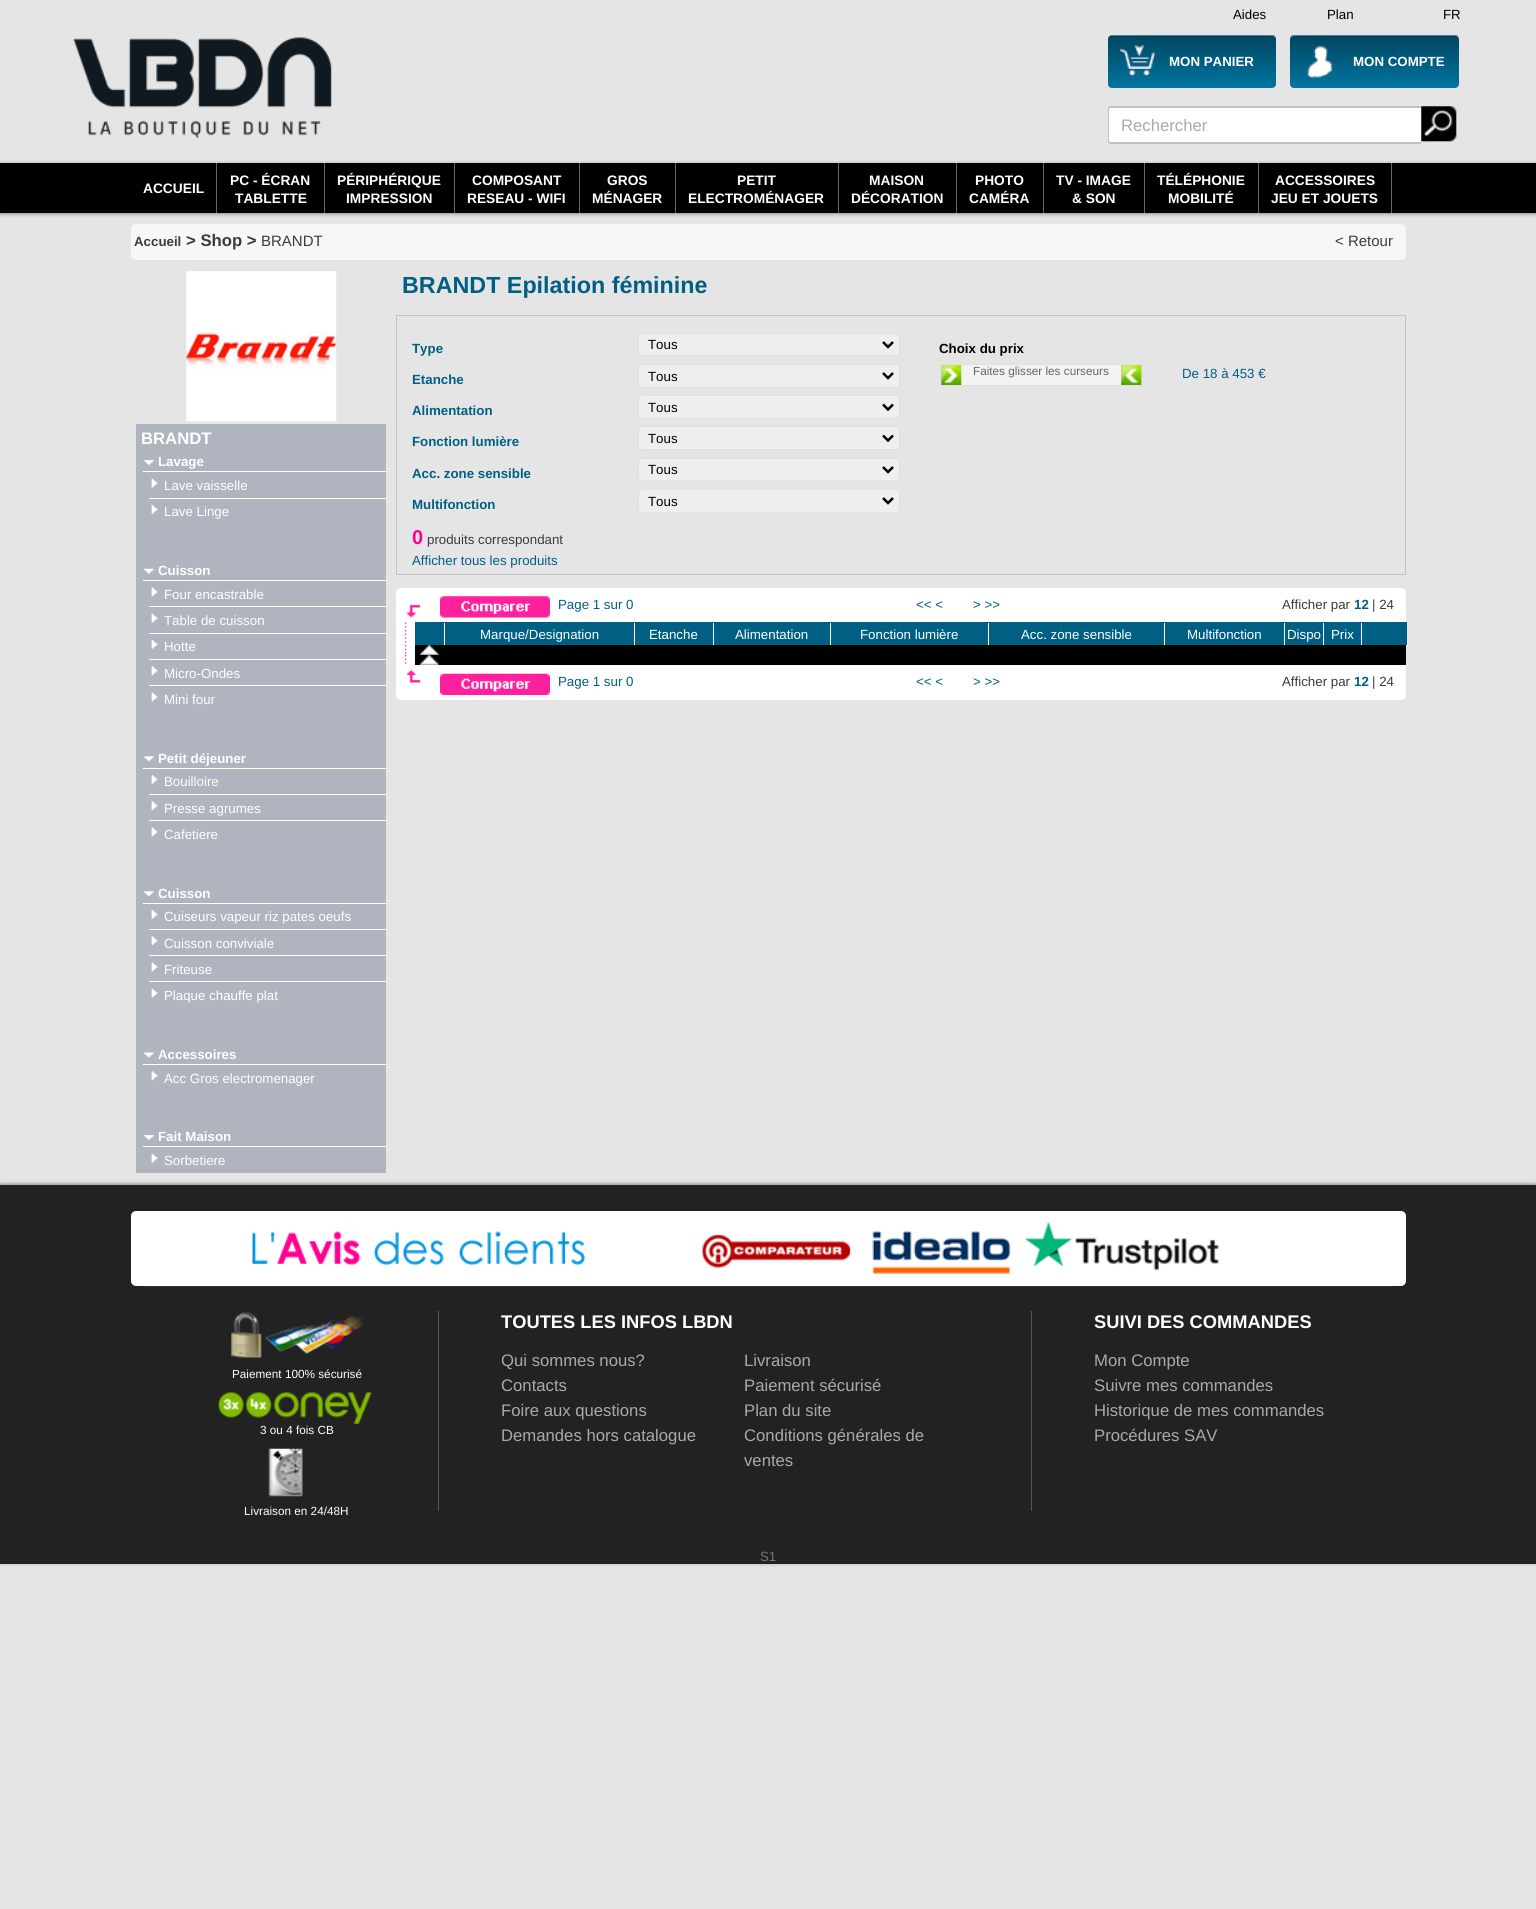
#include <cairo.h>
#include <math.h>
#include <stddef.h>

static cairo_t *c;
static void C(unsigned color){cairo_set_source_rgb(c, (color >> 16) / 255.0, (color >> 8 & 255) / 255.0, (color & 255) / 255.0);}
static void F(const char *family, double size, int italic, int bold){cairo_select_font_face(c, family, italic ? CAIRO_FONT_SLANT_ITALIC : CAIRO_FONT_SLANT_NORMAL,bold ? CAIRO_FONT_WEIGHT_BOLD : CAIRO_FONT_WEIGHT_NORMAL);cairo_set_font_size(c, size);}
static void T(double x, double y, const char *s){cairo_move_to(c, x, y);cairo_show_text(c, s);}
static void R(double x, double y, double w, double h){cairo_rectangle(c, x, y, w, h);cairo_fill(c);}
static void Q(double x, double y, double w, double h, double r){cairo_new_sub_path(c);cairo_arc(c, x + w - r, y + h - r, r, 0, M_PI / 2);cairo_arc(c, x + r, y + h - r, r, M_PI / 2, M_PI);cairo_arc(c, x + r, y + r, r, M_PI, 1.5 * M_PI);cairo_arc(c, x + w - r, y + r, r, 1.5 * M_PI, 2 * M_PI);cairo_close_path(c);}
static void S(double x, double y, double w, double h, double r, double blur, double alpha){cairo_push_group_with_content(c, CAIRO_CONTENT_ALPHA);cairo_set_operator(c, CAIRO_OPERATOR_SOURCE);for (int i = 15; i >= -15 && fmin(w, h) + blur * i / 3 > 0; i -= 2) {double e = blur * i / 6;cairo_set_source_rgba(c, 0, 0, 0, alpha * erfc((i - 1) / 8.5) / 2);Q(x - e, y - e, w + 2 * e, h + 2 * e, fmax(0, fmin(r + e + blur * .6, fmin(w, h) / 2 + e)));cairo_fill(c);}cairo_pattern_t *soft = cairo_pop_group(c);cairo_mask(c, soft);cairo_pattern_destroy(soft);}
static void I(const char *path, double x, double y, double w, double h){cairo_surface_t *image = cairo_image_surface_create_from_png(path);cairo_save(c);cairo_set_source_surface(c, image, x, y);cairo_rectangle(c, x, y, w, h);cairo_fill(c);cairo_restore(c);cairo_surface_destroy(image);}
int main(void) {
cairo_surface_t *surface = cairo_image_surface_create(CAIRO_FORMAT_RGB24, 1536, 1909);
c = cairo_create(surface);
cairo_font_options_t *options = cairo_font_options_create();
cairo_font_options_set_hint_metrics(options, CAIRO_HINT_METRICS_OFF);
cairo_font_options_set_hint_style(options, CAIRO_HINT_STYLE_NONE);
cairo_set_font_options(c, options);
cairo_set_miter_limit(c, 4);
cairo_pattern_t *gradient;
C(0xe5e5e5);
cairo_paint(c);
F("Liberation Sans",13.3,0,0);
C(0x000000);
T(1233,19,"Aides");
T(1327,19,"Plan");
T(1443,19,"FR");
I("1.png",73,37,259,101);
gradient = cairo_pattern_create_linear(1192,35,1192,88);
cairo_pattern_add_color_stop_rgba(gradient,0,0,0.271,0.373,1);
cairo_pattern_add_color_stop_rgba(gradient,1,0.004,0.459,0.631,1);
cairo_set_source(c,gradient);
cairo_pattern_destroy(gradient);
Q(1108,35,168,53,4);
cairo_fill(c);
cairo_set_source_rgba(c,1,1,1,0.3);
cairo_new_path(c);
cairo_move_to(c,1111,36);
cairo_line_to(c,1272,36);
cairo_curve_to(c,1275,36,1276,38,1276,40);
cairo_line_to(c,1276,39);
cairo_curve_to(c,1276,37,1274,35,1272,35);
cairo_line_to(c,1112,35);
cairo_curve_to(c,1110,35,1108,37,1108,39);
cairo_line_to(c,1108,40);
cairo_curve_to(c,1108,38,1109,36,1111,36);
cairo_close_path(c);
cairo_fill(c);
I("2.png",1119,45,37,31);
F("Liberation Sans",13.3,0,1);
C(0xffffff);
T(1169,66,"MON PANIER");
gradient = cairo_pattern_create_linear(1374,35,1374,88);
cairo_pattern_add_color_stop_rgba(gradient,0,0,0.271,0.373,1);
cairo_pattern_add_color_stop_rgba(gradient,1,0.004,0.459,0.631,1);
cairo_set_source(c,gradient);
cairo_pattern_destroy(gradient);
Q(1290,35,169,53,4);
cairo_fill(c);
cairo_set_source_rgba(c,1,1,1,0.3);
cairo_new_path(c);
cairo_move_to(c,1294,36);
cairo_line_to(c,1455,36);
cairo_curve_to(c,1457,36,1459,38,1459,40);
cairo_line_to(c,1459,39);
cairo_curve_to(c,1459,37,1457,35,1455,35);
cairo_line_to(c,1294,35);
cairo_curve_to(c,1292,35,1290,37,1290,39);
cairo_line_to(c,1290,40);
cairo_curve_to(c,1290,38,1292,36,1294,36);
cairo_close_path(c);
cairo_fill(c);
I("3.png",1307,45,26,33);
C(0xffffff);
T(1353,66,"MON COMPTE");
cairo_new_path(c);
cairo_move_to(c,1112,106);
cairo_line_to(c,1421,106);
cairo_line_to(c,1421,144);
cairo_line_to(c,1112,144);
cairo_curve_to(c,1110,144,1108,142,1108,140);
cairo_line_to(c,1108,110);
cairo_curve_to(c,1108,108,1110,106,1112,106);
cairo_close_path(c);
cairo_fill(c);
C(0xc0c0c0);
cairo_set_fill_rule(c,CAIRO_FILL_RULE_EVEN_ODD);
cairo_new_path(c);
cairo_move_to(c,1111,106);
cairo_line_to(c,1421,106);
cairo_line_to(c,1421,144);
cairo_line_to(c,1111,144);
cairo_curve_to(c,1109,144,1108,142,1108,140);
cairo_line_to(c,1108,110);
cairo_curve_to(c,1108,108,1109,106,1111,106);
cairo_close_path(c);
cairo_move_to(c,1111,108);
cairo_line_to(c,1421,108);
cairo_line_to(c,1421,142);
cairo_line_to(c,1111,142);
cairo_curve_to(c,1110,142,1109,141,1109,140);
cairo_line_to(c,1109,110);
cairo_curve_to(c,1109,109,1110,108,1111,108);
cairo_close_path(c);
cairo_fill(c);
F("Liberation Sans",16.7,0,0);
C(0xaaaaaa);
T(1121,131,"Rechercher");
I("4.png",1421,106,36,36);
C(0x000000);
S(0,164,1536,50,0,2,.4);
C(0x000000);
R(0,163,1536,50);
C(0x666666);
R(216,163,1,50);
F("Liberation Sans",13.75,0,1);
C(0xffffff);
T(143,193,"ACCUEIL");
C(0x666666);
R(324,163,1,50);
C(0xffffff);
T(230,185,"PC - ÉCRAN");
T(235,203,"TABLETTE");
C(0x666666);
R(454,163,1,50);
C(0xffffff);
T(337,185,"PÉRIPHÉRIQUE");
T(346,203,"IMPRESSION");
C(0x666666);
R(579,163,1,50);
C(0xffffff);
T(472,185,"COMPOSANT");
T(467,203,"RESEAU - WIFI");
C(0x666666);
R(675,163,1,50);
C(0xffffff);
T(607,185,"GROS");
T(592,203,"MÉNAGER");
C(0x666666);
R(838,163,1,50);
C(0xffffff);
T(737,185,"PETIT");
T(688,203,"ELECTROMÉNAGER");
C(0x666666);
R(956,163,1,50);
C(0xffffff);
T(869,185,"MAISON");
T(851,203,"DÉCORATION");
C(0x666666);
R(1043,163,1,50);
C(0xffffff);
T(975,185,"PHOTO");
T(969,203,"CAMÉRA");
C(0x666666);
R(1144,163,1,50);
C(0xffffff);
T(1056,185,"TV - IMAGE");
T(1072,203,"& SON");
C(0x666666);
R(1258,163,1,50);
C(0xffffff);
T(1157,185,"TÉLÉPHONIE");
T(1168,203,"MOBILITÉ");
C(0x666666);
R(1391,163,1,50);
C(0xffffff);
T(1275,185,"ACCESSOIRES");
T(1271,203,"JEU ET JOUETS");
C(0xf7f7f7);
Q(131,224,1275,36,5);
cairo_fill(c);
F("Liberation Sans",13.3,0,1);
C(0x3b3b3b);
T(134,246,"Accueil");
F("Liberation Sans",16.7,0,1);
T(186,246,"> Shop >");
F("Liberation Sans",15,0,0);
T(261,246,"BRANDT");
T(1335,246,"< Retour");
I("5.png",186,271,151,151);
C(0xafb4be);
R(136,424,250,749);
F("Liberation Sans",16.7,0,1);
C(0xffffff);
T(141,444,"BRANDT");
I("6.png",143,459,11,7);
R(143,471,243,1);
F("Liberation Sans",13.3,0,1);
T(158,466,"Lavage");
I("7.png",151,478,7,10);
F("Liberation Sans",13.3,0,0);
T(164,490,"Lave vaisselle");
I("8.png",151,505,7,9);
R(149,498,237,1);
T(164,516,"Lave Linge");
I("9.png",143,568,11,6);
R(143,580,243,1);
F("Liberation Sans",13.3,0,1);
T(158,575,"Cuisson");
I("10.png",151,587,7,10);
F("Liberation Sans",13.3,0,0);
T(164,599,"Four encastrable");
I("7.png",151,613,7,10);
R(149,606,237,1);
T(164,625,"Table de cuisson");
I("8.png",151,640,7,9);
R(149,633,237,1);
T(164,651,"Hotte");
I("11.png",151,666,7,10);
R(149,659,237,1);
T(164,678,"Micro-Ondes");
I("12.png",151,692,7,10);
R(149,685,237,1);
T(164,704,"Mini four");
I("13.png",143,756,11,6);
R(143,768,243,1);
F("Liberation Sans",13.3,0,1);
T(158,763,"Petit déjeuner");
I("14.png",151,775,7,9);
F("Liberation Sans",13.3,0,0);
T(164,786,"Bouilloire");
I("11.png",151,801,7,10);
R(149,794,237,1);
T(164,813,"Presse agrumes");
I("12.png",151,827,7,10);
R(149,820,237,1);
T(164,839,"Cafetiere");
I("13.png",143,891,11,6);
R(143,903,243,1);
F("Liberation Sans",13.3,0,1);
T(158,898,"Cuisson");
I("8.png",151,910,7,9);
F("Liberation Sans",13.3,0,0);
T(164,921,"Cuiseurs vapeur riz pates oeufs");
I("11.png",151,936,7,10);
R(149,929,237,1);
T(164,948,"Cuisson conviviale");
I("12.png",151,962,7,10);
R(149,955,237,1);
T(164,974,"Friteuse");
I("7.png",151,988,7,10);
R(149,981,237,1);
T(164,1000,"Plaque chauffe plat");
I("15.png",143,1052,11,6);
R(143,1064,243,1);
F("Liberation Sans",13.3,0,1);
T(158,1059,"Accessoires");
I("11.png",151,1071,7,10);
F("Liberation Sans",13.3,0,0);
T(164,1083,"Acc Gros electromenager");
I("6.png",143,1134,11,7);
R(143,1146,243,1);
F("Liberation Sans",13.3,0,1);
T(158,1141,"Fait Maison");
I("7.png",151,1153,7,10);
F("Liberation Sans",13.3,0,0);
T(164,1165,"Sorbetiere");
F("Liberation Sans",23.3,0,1);
C(0x005f82);
T(402,293,"BRANDT Epilation féminine");
cairo_rectangle(c,396.5,315.5,1009,259);
C(0xc3c3c3);
cairo_set_line_width(c,1);
cairo_stroke(c);
F("Liberation Sans",13.3,0,1);
C(0x005f82);
T(412,353,"Type");
C(0xefefef);
Q(638.5,333.5,261,22,3.5);
cairo_fill_preserve(c);
C(0xe0e0e0);
cairo_stroke(c);
cairo_new_path(c);
cairo_move_to(c,883,342);
cairo_line_to(c,888,347);
cairo_line_to(c,893,342);
C(0x000000);
cairo_set_line_width(c,2.5);
cairo_stroke(c);
F("Liberation Sans",13.3,0,0);
T(648,349,"Tous");
F("Liberation Sans",13.3,0,1);
C(0x005f82);
T(412,384,"Etanche");
C(0xefefef);
Q(638.5,364.5,261,23,3.5);
cairo_fill_preserve(c);
C(0xe0e0e0);
cairo_set_line_width(c,1);
cairo_stroke(c);
cairo_new_path(c);
cairo_move_to(c,883,373);
cairo_line_to(c,888,378);
cairo_line_to(c,893,373);
C(0x000000);
cairo_set_line_width(c,2.5);
cairo_stroke(c);
F("Liberation Sans",13.3,0,0);
T(648,381,"Tous");
F("Liberation Sans",13.3,0,1);
C(0x005f82);
T(412,415,"Alimentation");
C(0xefefef);
Q(638.5,395.5,261,23,3.5);
cairo_fill_preserve(c);
C(0xe0e0e0);
cairo_set_line_width(c,1);
cairo_stroke(c);
cairo_new_path(c);
cairo_move_to(c,883,404.5);
cairo_line_to(c,888,409.5);
cairo_line_to(c,893,404.5);
C(0x000000);
cairo_set_line_width(c,2.5);
cairo_stroke(c);
F("Liberation Sans",13.3,0,0);
T(648,412,"Tous");
F("Liberation Sans",13.3,0,1);
C(0x005f82);
T(412,446,"Fonction lumière");
C(0xefefef);
Q(638.5,426.5,261,23,3.5);
cairo_fill_preserve(c);
C(0xe0e0e0);
cairo_set_line_width(c,1);
cairo_stroke(c);
cairo_new_path(c);
cairo_move_to(c,883,435.5);
cairo_line_to(c,888,440.5);
cairo_line_to(c,893,435.5);
C(0x000000);
cairo_set_line_width(c,2.5);
cairo_stroke(c);
F("Liberation Sans",13.3,0,0);
T(648,443,"Tous");
F("Liberation Sans",13.3,0,1);
C(0x005f82);
T(412,478,"Acc. zone sensible");
C(0xefefef);
Q(638.5,458.5,261,22,3.5);
cairo_fill_preserve(c);
C(0xe0e0e0);
cairo_set_line_width(c,1);
cairo_stroke(c);
cairo_new_path(c);
cairo_move_to(c,883,467);
cairo_line_to(c,888,472);
cairo_line_to(c,893,467);
C(0x000000);
cairo_set_line_width(c,2.5);
cairo_stroke(c);
F("Liberation Sans",13.3,0,0);
T(648,474,"Tous");
F("Liberation Sans",13.3,0,1);
C(0x005f82);
T(412,509,"Multifonction");
C(0xefefef);
Q(638.5,489.5,261,23,3.5);
cairo_fill_preserve(c);
C(0xe0e0e0);
cairo_set_line_width(c,1);
cairo_stroke(c);
cairo_new_path(c);
cairo_move_to(c,883,498);
cairo_line_to(c,888,503);
cairo_line_to(c,893,498);
C(0x000000);
cairo_set_line_width(c,2.5);
cairo_stroke(c);
F("Liberation Sans",13.3,0,0);
T(648,506,"Tous");
F("Liberation Sans",13.3,0,1);
T(939,353,"Choix du prix");
C(0xdadada);
cairo_rectangle(c,940.5,364.5,202,21);
cairo_fill_preserve(c);
C(0xe0e0e0);
cairo_set_line_width(c,1);
cairo_stroke(c);
C(0xf3f3f3);
R(961,365,160,20);
I("16.png",941,365,21,20);
F("Liberation Sans",11.75,0,0);
C(0x666666);
T(973,375,"Faites glisser les curseurs");
I("17.png",1121,365,21,20);
F("Liberation Sans",13.3,0,0);
C(0x005f82);
T(1182,378,"De 18 à 453 €");
F("Liberation Sans",20,0,1);
C(0xff0090);
T(412,544,"0");
F("Liberation Sans",13.3,0,0);
C(0x3b3b3b);
T(427,544,"produits correspondant");
C(0x005f82);
T(412,565,"Afficher tous les produits");
C(0xffffff);
cairo_new_path(c);
cairo_move_to(c,401,588);
cairo_line_to(c,1401,588);
cairo_curve_to(c,1404,588,1406,590,1406,593);
cairo_line_to(c,1406,623);
cairo_line_to(c,396,623);
cairo_line_to(c,396,593);
cairo_curve_to(c,396,590,398,588,401,588);
cairo_close_path(c);
cairo_fill(c);
I("18.png",406,604,15,14);
I("19.png",440,596,110,22);
C(0x005f82);
T(558,609,"Page 1 sur 0");
T(916,609,"<< <");
T(973,609,"> >>");
C(0x3b3b3b);
T(1282,609,"Afficher par");
F("Liberation Sans",13.3,0,1);
C(0x005f82);
T(1354,609,"12");
F("Liberation Sans",13.3,0,0);
C(0x3b3b3b);
T(1372,609,"| 24");
C(0xffffff);
R(396,623,19,42);
I("20.png",404,622,3,23);
C(0x005f82);
R(415,622,992,23);
C(0xffffff);
R(444,623,1,22);
T(480,639,"Marque/Designation");
R(634,623,1,22);
T(649,639,"Etanche");
R(713,623,1,22);
T(735,639,"Alimentation");
R(830,623,1,22);
T(860,639,"Fonction lumière");
R(988,623,1,22);
T(1021,639,"Acc. zone sensible");
R(1164,623,1,22);
T(1187,639,"Multifonction");
R(1284,623,1,22);
T(1287,639,"Dispo");
R(1323,623,1,22);
T(1331,639,"Prix");
R(1361,623,1,22);
I("21.png",404,645,3,9);
C(0x000000);
R(415,645,991,10);
I("22.png",420,645,19,10);
I("21.png",404,655,3,9);
R(415,655,991,10);
I("22.png",420,655,19,10);
C(0xffffff);
cairo_new_path(c);
cairo_move_to(c,396,665);
cairo_line_to(c,1406,665);
cairo_line_to(c,1406,695);
cairo_curve_to(c,1406,698,1404,700,1401,700);
cairo_line_to(c,401,700);
cairo_curve_to(c,398,700,396,698,396,695);
cairo_close_path(c);
cairo_fill(c);
I("23.png",406,669,15,14);
I("24.png",440,673,110,22);
C(0x005f82);
T(558,686,"Page 1 sur 0");
T(916,686,"<< <");
T(973,686,"> >>");
C(0x3b3b3b);
T(1282,686,"Afficher par");
F("Liberation Sans",13.3,0,1);
C(0x005f82);
T(1354,686,"12");
F("Liberation Sans",13.3,0,0);
C(0x3b3b3b);
T(1372,686,"| 24");
C(0x000000);
S(0,1184,1536,379,0,2,.4);
C(0x222222);
R(0,1185,1536,379);
C(0xffffff);
Q(131,1211,1275,75,5);
cairo_fill(c);
I("25.png",145,1221,1248,66);
I("26.png",231,1312,133,46);
F("Liberation Sans",11.75,0,0);
T(232,1378,"Paiement 100% sécurisé");
C(0x555555);
R(438,1311,1,200);
F("Liberation Sans",18.3,0,1);
C(0xffffff);
T(501,1328,"TOUTES LES INFOS LBDN");
F("Liberation Sans",16.7,0,0);
C(0xaaaaaa);
T(501,1366,"Qui sommes nous?");
T(501,1391,"Contacts");
T(501,1416,"Foire aux questions");
T(501,1441,"Demandes hors catalogue");
T(744,1366,"Livraison");
T(744,1391,"Paiement sécurisé");
T(744,1416,"Plan du site");
T(744,1441,"Conditions générales de");
T(744,1466,"ventes");
C(0x555555);
R(1031,1311,1,200);
F("Liberation Sans",18.3,0,1);
C(0xffffff);
T(1094,1328,"SUIVI DES COMMANDES");
F("Liberation Sans",16.7,0,0);
C(0xaaaaaa);
T(1094,1366,"Mon Compte");
T(1094,1391,"Suivre mes commandes");
T(1094,1416,"Historique de mes commandes");
T(1094,1441,"Procédures SAV");
I("27.png",218,1392,154,32);
F("Liberation Sans",11.75,0,0);
C(0xffffff);
T(260,1434,"3 ou 4 fois CB");
I("28.png",268,1448,35,49);
T(244,1515,"Livraison en 24/48H");
F("Liberation Sans",13.3,0,0);
C(0x777777);
T(760,1561,"S1");
cairo_surface_write_to_png(surface, "o.png");
cairo_font_options_destroy(options);
cairo_destroy(c);
cairo_surface_destroy(surface);
return 0;
}
